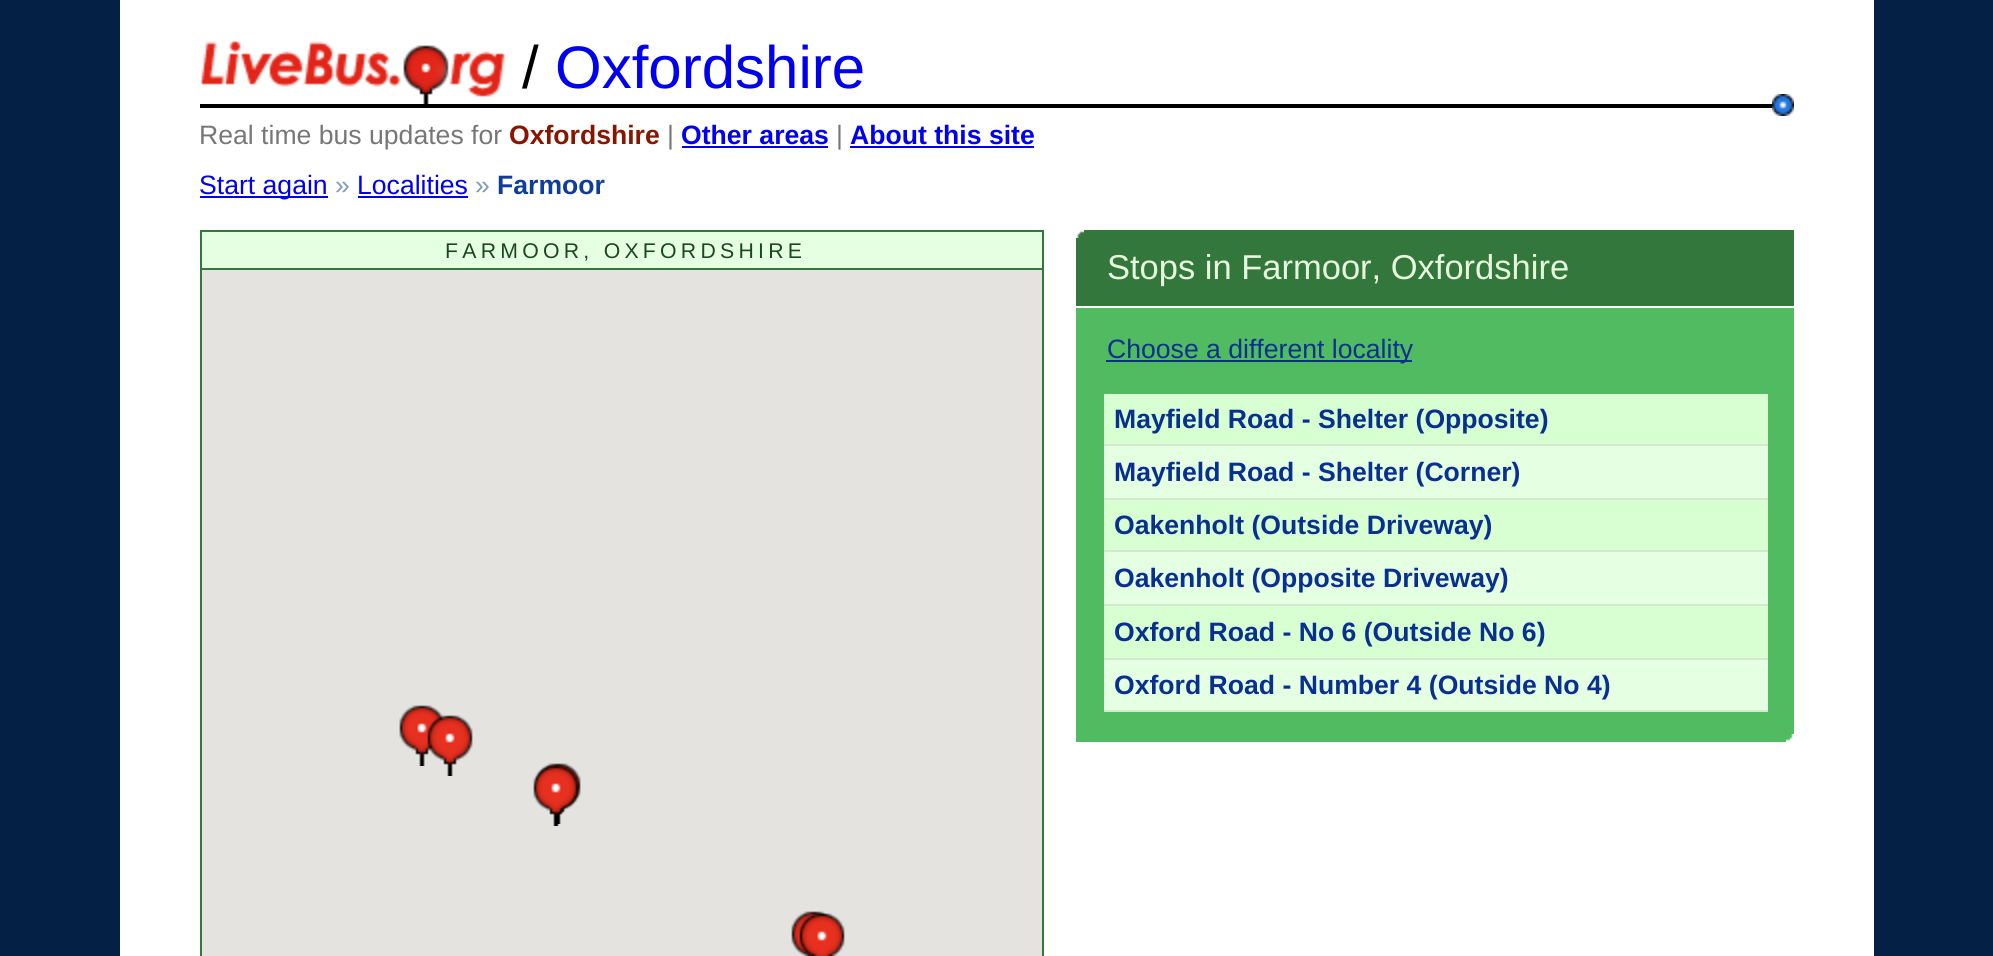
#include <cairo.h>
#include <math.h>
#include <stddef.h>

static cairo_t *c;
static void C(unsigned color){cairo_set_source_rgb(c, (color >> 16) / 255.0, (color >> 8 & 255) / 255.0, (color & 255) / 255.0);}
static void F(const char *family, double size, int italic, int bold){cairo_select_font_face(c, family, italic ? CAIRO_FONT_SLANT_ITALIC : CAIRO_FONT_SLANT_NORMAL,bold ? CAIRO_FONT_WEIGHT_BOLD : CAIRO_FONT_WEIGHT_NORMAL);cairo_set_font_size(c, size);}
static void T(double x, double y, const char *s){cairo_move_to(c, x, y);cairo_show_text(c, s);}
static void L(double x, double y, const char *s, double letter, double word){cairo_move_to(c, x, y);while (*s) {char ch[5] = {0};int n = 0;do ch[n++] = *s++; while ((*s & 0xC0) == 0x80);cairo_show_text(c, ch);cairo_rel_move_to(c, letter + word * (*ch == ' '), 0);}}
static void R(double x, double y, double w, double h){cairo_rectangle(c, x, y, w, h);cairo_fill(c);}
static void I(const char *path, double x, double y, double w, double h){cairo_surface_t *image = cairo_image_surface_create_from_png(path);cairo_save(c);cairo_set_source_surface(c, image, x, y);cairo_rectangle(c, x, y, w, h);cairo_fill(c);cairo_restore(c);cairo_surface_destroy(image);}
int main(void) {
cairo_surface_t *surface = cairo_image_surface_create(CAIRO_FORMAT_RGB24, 1993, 956);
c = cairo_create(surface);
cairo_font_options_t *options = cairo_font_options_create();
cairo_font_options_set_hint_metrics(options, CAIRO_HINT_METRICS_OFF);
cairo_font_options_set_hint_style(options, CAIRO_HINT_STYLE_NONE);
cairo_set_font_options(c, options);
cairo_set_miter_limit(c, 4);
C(0x042044);
cairo_paint(c);
C(0xffffff);
R(120,0,1754,956);
C(0x000000);
R(200,104,1574,4);
I("1.png",200,40,305,64);
F("Liberation Sans",60,0,0);
T(522,88,"/");
C(0x0000ee);
T(555,88,"Oxfordshire");
I("2.png",1772,94,22,22);
F("Liberation Sans",26.6,0,0);
C(0x777777);
T(199,144,"Real time bus updates for");
F("Liberation Sans",26.6,0,1);
C(0x871600);
T(509,144,"Oxfordshire");
F("Liberation Sans",26.6,0,0);
C(0x777777);
T(667,144,"|");
F("Liberation Sans",26.6,0,1);
C(0x0000ee);
T(681,144,"Other areas");
R(682,146,146,2);
F("Liberation Sans",26.6,0,0);
C(0x777777);
T(836,144,"|");
F("Liberation Sans",26.6,0,1);
C(0x0000ee);
T(850,144,"About this site");
R(850,146,184,2);
R(200,196,128,2);
F("Liberation Sans",26.6,0,0);
T(199,194,"Start again");
C(0x7f9dbc);
T(335,194,"»");
C(0x0000ee);
T(357,194,"Localities");
R(358,196,110,2);
C(0x7f9dbc);
T(475,194,"»");
F("Liberation Sans",26.6,0,1);
C(0x0f3d9c);
T(497,194,"Farmoor");
cairo_rectangle(c,201,231,842,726);
C(0x33773d);
cairo_stroke(c);
C(0xe5ffe3);
R(202,232,840,36);
C(0x33773d);
R(202,268,840,2);
F("Liberation Sans",21.25,0,0);
C(0x1d4524);
L(445,258,"FARMOOR, OXFORDSHIRE",4.25,0);
C(0xe5e3df);
R(202,270,840,686);
I("3.png",399,705,46,61);
I("4.png",427,715,46,61);
I("3.png",535,763,46,61);
I("5.png",533,765,46,61);
I("6.png",791,911,44,45);
I("7.png",799,913,46,43);
C(0x50bb60);
R(1076,308,718,434);
I("8.png",1786,734,8,8);
C(0x33773d);
R(1076,230,718,76);
I("9.png",1076,230,8,8);
F("Liberation Sans",34.5,0,0);
C(0xe6f7dc);
T(1107,279,"Stops in Farmoor, Oxfordshire");
C(0x09308f);
R(1106,360,306,2);
F("Liberation Sans",26.6,0,0);
T(1107,358,"Choose a different locality");
C(0xd7ffd2);
R(1104,394,664,50);
C(0xd6e7d0);
R(1104,444,664,2);
F("Liberation Sans",26.6,0,1);
C(0x09308f);
T(1114,428,"Mayfield Road - Shelter (Opposite)");
C(0xe5ffe3);
R(1104,446,664,52);
C(0xd6e7d0);
R(1104,498,664,2);
C(0x09308f);
T(1114,481,"Mayfield Road - Shelter (Corner)");
C(0xd7ffd2);
R(1104,500,664,50);
C(0xd6e7d0);
R(1104,550,664,2);
C(0x09308f);
T(1114,534,"Oakenholt (Outside Driveway)");
C(0xe5ffe3);
R(1104,552,664,52);
C(0xd6e7d0);
R(1104,604,664,2);
C(0x09308f);
T(1114,587,"Oakenholt (Opposite Driveway)");
C(0xd7ffd2);
R(1104,606,664,52);
C(0xd6e7d0);
R(1104,658,664,2);
C(0x09308f);
T(1114,641,"Oxford Road - No 6 (Outside No 6)");
C(0xe5ffe3);
R(1104,660,664,50);
C(0xd6e7d0);
R(1104,710,664,2);
C(0x09308f);
T(1114,694,"Oxford Road - Number 4 (Outside No 4)");
cairo_surface_write_to_png(surface, "o.png");
cairo_font_options_destroy(options);
cairo_destroy(c);
cairo_surface_destroy(surface);
return 0;
}
